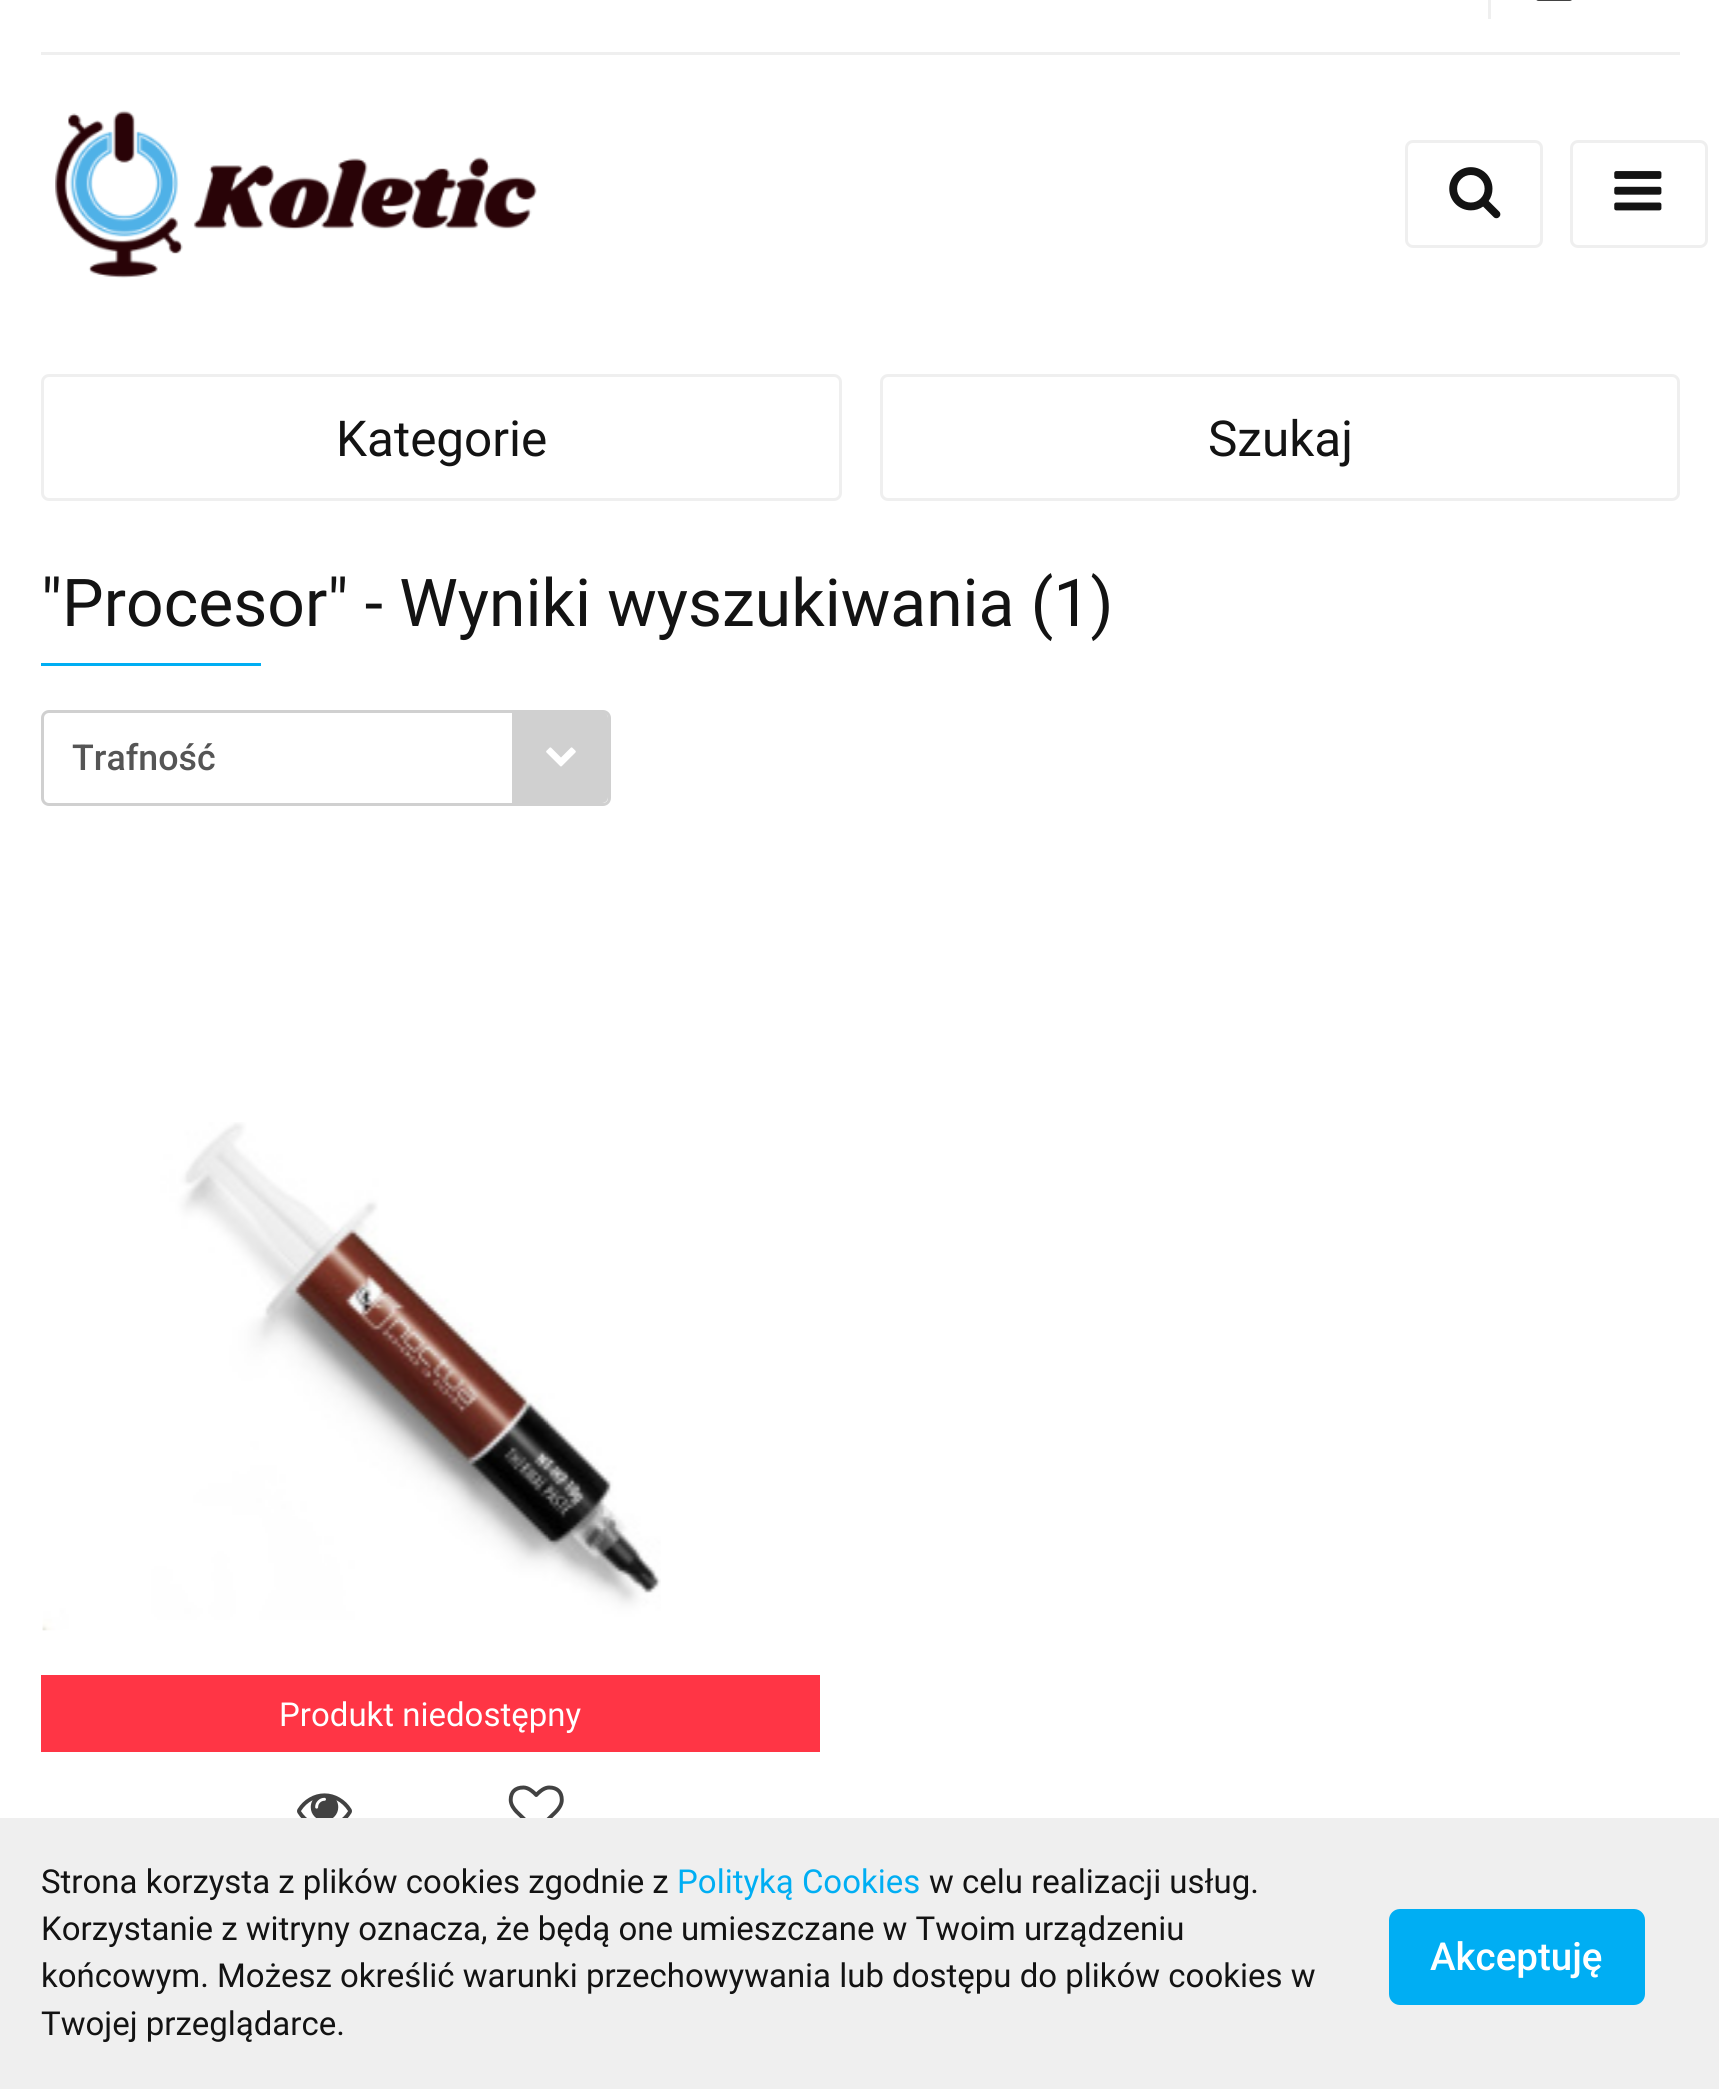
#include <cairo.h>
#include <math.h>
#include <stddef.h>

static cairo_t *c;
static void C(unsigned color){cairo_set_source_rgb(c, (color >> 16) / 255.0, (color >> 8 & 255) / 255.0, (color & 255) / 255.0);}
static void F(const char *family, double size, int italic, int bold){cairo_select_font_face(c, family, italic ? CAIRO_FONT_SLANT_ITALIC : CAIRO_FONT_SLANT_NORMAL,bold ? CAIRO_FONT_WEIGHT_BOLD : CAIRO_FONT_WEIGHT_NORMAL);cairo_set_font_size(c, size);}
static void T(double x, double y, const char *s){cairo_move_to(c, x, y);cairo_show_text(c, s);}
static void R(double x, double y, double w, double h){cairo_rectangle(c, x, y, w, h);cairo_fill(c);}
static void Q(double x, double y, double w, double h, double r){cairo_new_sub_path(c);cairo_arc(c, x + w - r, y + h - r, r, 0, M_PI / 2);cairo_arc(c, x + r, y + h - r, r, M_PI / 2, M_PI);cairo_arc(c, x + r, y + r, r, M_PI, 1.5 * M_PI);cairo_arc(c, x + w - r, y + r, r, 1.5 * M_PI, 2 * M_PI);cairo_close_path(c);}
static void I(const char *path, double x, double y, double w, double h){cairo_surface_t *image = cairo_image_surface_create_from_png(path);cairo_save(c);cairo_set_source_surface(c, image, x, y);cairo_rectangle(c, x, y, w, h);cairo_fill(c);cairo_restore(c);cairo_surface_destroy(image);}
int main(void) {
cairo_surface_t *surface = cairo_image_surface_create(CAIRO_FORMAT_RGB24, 1719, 2089);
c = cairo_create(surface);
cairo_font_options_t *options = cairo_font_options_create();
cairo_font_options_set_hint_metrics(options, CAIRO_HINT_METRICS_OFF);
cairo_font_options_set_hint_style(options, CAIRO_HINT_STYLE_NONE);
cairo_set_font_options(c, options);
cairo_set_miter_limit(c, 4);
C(0xffffff);
cairo_paint(c);
C(0xefefef);
R(41,52,1639,3);
R(1488,0,3,19);
I("1.png",1536,0,36,1);
I("2.png",55,110,482,168);
Q(1406.5,141.5,135,105,6.5);
cairo_set_line_width(c,3);
cairo_stroke(c);
I("3.png",1449,167,52,52);
Q(1571.5,141.5,135,105,6.5);
cairo_stroke(c);
I("4.png",1614,171,48,40);
Q(42.5,375.5,798,124,6.5);
cairo_stroke(c);
F("Roboto",49.5,0,0);
C(0x131313);
T(336,456,"Kategorie");
Q(881.5,375.5,797,124,6.5);
C(0xefefef);
cairo_stroke(c);
C(0x131313);
T(1208,456,"Szukaj");
F("Roboto",66,0,0);
T(41,626,"\"Procesor\" - Wyniki wyszukiwania (1)");
C(0x00aef3);
R(41,663,220,3);
Q(42.5,711.5,567,93,6.5);
C(0xd0d0d0);
cairo_stroke(c);
F("Roboto Medium",35.75,0,0);
C(0x555555);
T(72,770,"Trafność");
C(0xd0d0d0);
cairo_new_path(c);
cairo_move_to(c,512,712);
cairo_line_to(c,602,712);
cairo_curve_to(c,605.5,712,608,714.5,608,718);
cairo_line_to(c,608,797);
cairo_curve_to(c,608,800.5,605.5,803,602,803);
cairo_line_to(c,512,803);
cairo_close_path(c);
cairo_fill(c);
I("5.png",546,747,30,20);
I("6.png",42,1122,619,509);
C(0xff3545);
R(41,1675,779,77);
F("Roboto",33,0,0);
C(0xffffff);
T(279,1726,"Produkt niedostępny");
I("7.png",297,1793,55,25);
I("8.png",508,1785,56,33);
C(0xefefef);
R(0,1818,1719,271);
C(0x131313);
T(41,1893,"Strona korzysta z plików cookies zgodnie z");
C(0x00aef3);
T(677,1893,"Polityką Cookies");
C(0x131313);
T(929,1893,"w celu realizacji usług.");
T(41,1940,"Korzystanie z witryny oznacza, że będą one umieszczane w Twoim urządzeniu");
T(41,1987,"końcowym. Możesz określić warunki przechowywania lub dostępu do plików cookies w");
T(41,2035,"Twojej przeglądarce.");
C(0x00aef3);
Q(1393,1913,248,88,7);
cairo_fill_preserve(c);
cairo_set_line_width(c,8);
cairo_stroke(c);
F("Roboto Medium",38.5,0,0);
C(0xffffff);
T(1430,1970,"Akceptuję");
cairo_surface_write_to_png(surface, "o.png");
cairo_font_options_destroy(options);
cairo_destroy(c);
cairo_surface_destroy(surface);
return 0;
}
